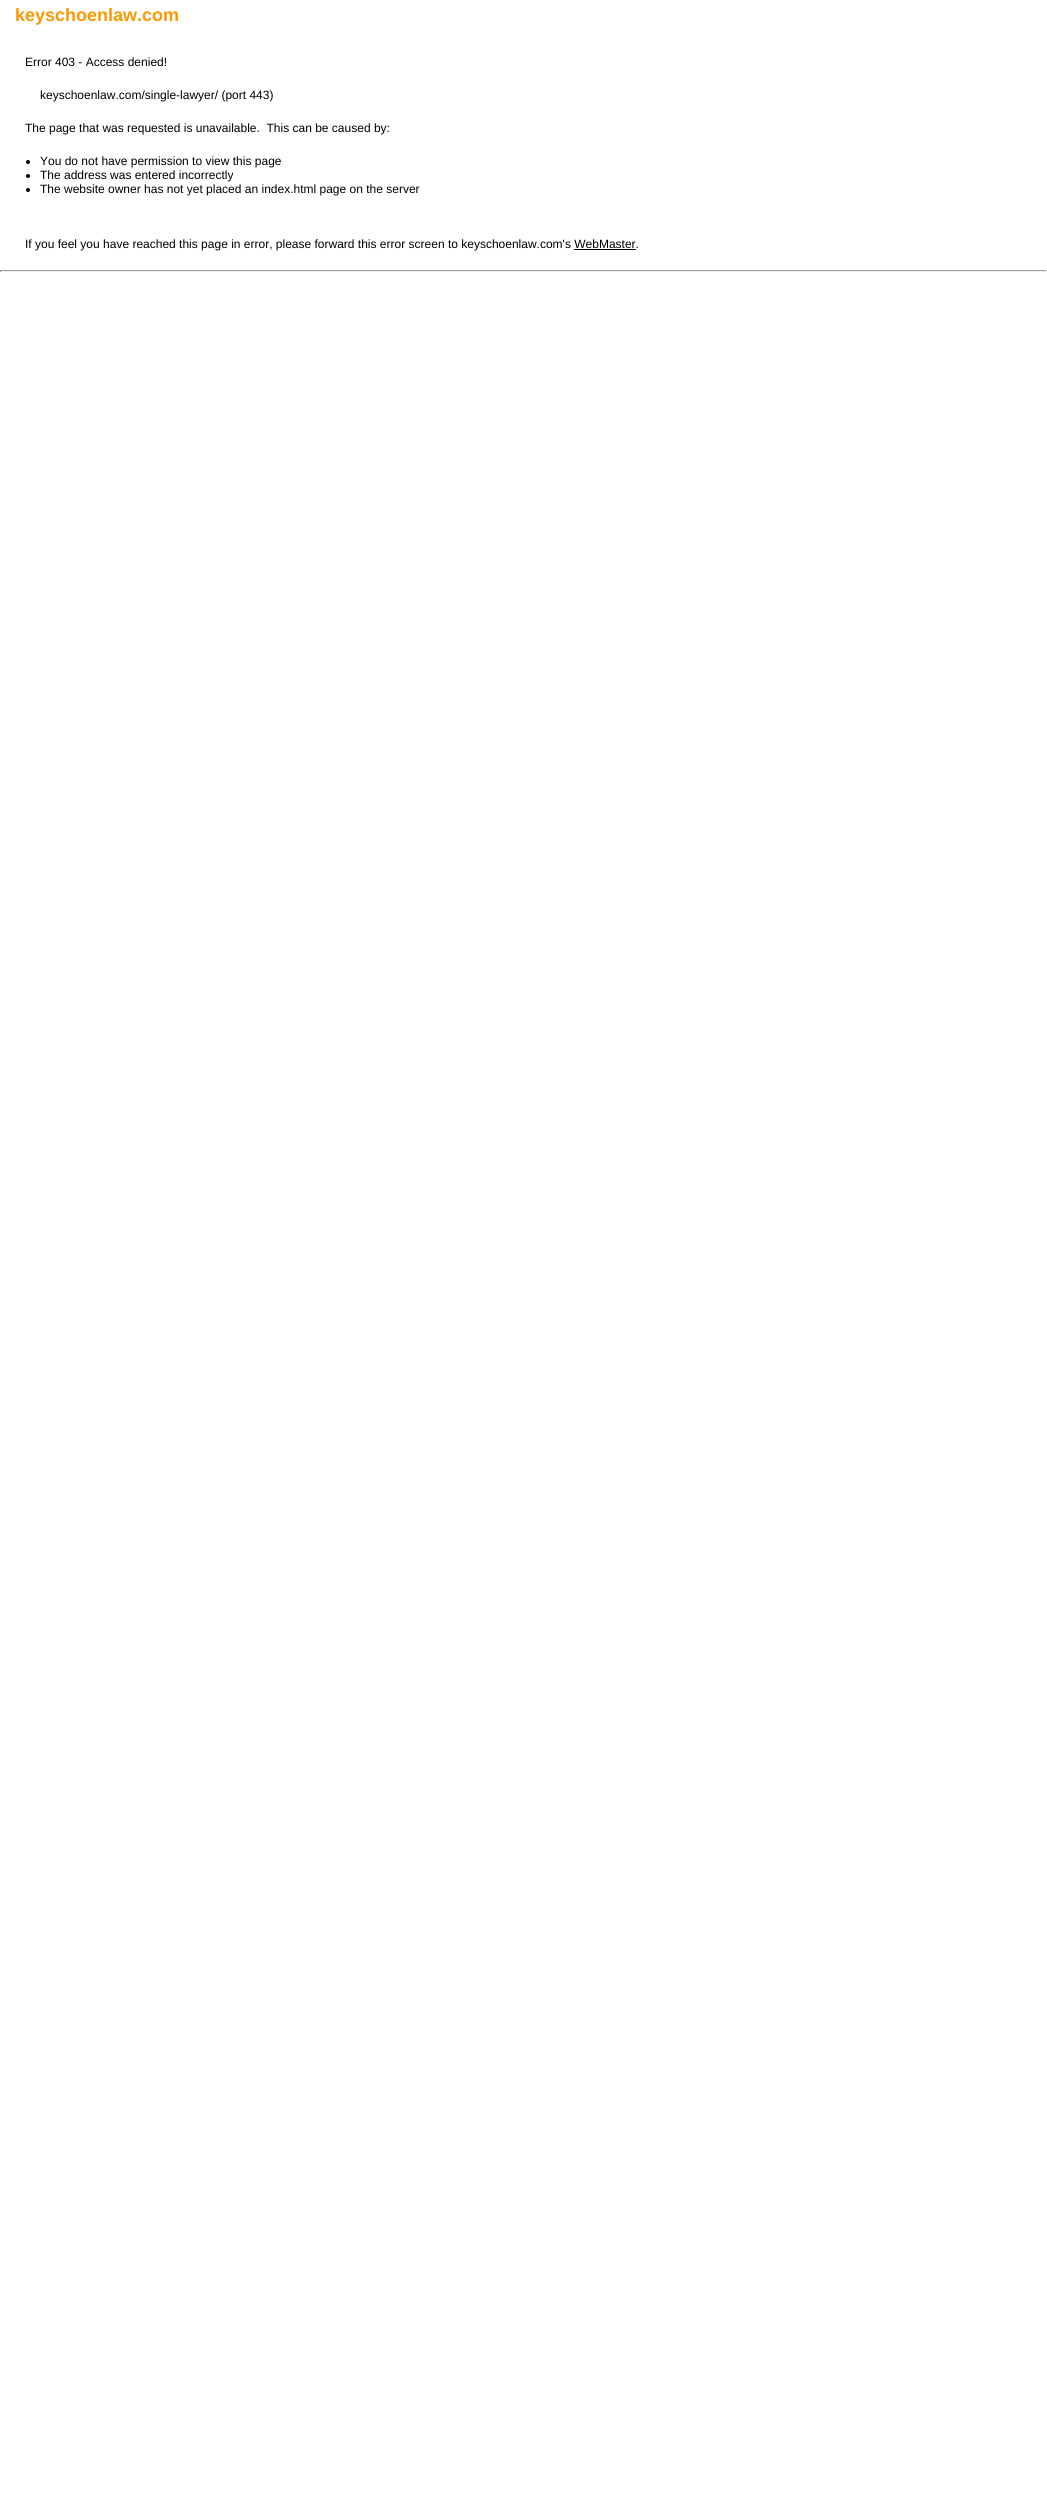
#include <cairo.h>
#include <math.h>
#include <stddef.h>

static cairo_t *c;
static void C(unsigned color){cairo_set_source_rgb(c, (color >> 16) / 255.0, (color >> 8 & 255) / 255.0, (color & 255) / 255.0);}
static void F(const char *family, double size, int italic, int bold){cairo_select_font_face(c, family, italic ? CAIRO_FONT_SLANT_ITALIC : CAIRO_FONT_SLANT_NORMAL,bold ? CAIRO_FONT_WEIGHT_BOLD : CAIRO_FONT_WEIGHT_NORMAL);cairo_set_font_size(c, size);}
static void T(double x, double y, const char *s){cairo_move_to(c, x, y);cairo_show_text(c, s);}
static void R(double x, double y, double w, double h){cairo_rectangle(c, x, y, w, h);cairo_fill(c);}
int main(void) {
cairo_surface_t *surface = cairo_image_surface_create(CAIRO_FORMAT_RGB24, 1047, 2493);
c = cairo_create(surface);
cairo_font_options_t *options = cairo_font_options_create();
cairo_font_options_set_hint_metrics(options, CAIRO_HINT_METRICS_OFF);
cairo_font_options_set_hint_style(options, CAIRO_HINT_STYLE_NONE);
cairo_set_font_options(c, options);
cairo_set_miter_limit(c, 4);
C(0xffffff);
cairo_paint(c);
F("Liberation Sans",18,0,1);
C(0xfb9802);
T(15,21,"keyschoenlaw.com");
F("Liberation Sans",12,0,0);
C(0x000000);
T(25,66,"Error 403 - Access denied!");
T(40,99,"keyschoenlaw.com/single-lawyer/ (port 443)");
T(25,132,"The page that was requested is unavailable.  This can be caused by:");
cairo_new_path(c);
cairo_arc(c,28,162,2,0,2 * M_PI);
cairo_fill(c);
T(40,165,"You do not have permission to view this page");
cairo_new_path(c);
cairo_arc(c,28,176,2,0,2 * M_PI);
cairo_fill(c);
T(40,179,"The address was entered incorrectly");
cairo_new_path(c);
cairo_arc(c,28,190,2,0,2 * M_PI);
cairo_fill(c);
T(40,193,"The website owner has not yet placed an index.html page on the server");
T(25,248,"If you feel you have reached this page in error, please forward this error screen to keyschoenlaw.com's WebMaster.");
R(574,249,62,1);
C(0x9f9f9f);
R(0,270,1047,1);
C(0xeeeeee);
R(1046,270,1,2);
R(0,271,1047,1);
C(0x9f9f9f);
R(0,270,1,2);
cairo_surface_write_to_png(surface, "o.png");
cairo_font_options_destroy(options);
cairo_destroy(c);
cairo_surface_destroy(surface);
return 0;
}
